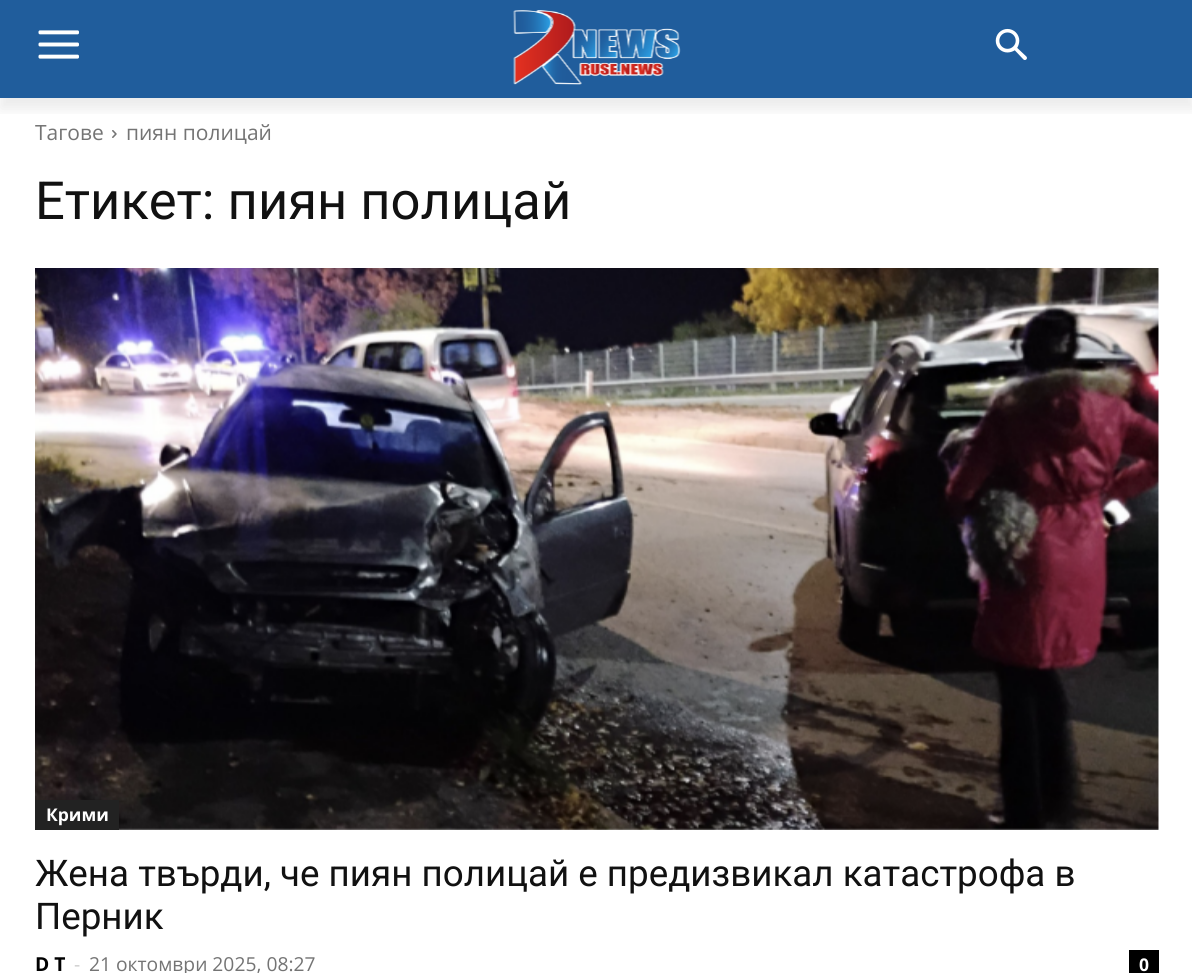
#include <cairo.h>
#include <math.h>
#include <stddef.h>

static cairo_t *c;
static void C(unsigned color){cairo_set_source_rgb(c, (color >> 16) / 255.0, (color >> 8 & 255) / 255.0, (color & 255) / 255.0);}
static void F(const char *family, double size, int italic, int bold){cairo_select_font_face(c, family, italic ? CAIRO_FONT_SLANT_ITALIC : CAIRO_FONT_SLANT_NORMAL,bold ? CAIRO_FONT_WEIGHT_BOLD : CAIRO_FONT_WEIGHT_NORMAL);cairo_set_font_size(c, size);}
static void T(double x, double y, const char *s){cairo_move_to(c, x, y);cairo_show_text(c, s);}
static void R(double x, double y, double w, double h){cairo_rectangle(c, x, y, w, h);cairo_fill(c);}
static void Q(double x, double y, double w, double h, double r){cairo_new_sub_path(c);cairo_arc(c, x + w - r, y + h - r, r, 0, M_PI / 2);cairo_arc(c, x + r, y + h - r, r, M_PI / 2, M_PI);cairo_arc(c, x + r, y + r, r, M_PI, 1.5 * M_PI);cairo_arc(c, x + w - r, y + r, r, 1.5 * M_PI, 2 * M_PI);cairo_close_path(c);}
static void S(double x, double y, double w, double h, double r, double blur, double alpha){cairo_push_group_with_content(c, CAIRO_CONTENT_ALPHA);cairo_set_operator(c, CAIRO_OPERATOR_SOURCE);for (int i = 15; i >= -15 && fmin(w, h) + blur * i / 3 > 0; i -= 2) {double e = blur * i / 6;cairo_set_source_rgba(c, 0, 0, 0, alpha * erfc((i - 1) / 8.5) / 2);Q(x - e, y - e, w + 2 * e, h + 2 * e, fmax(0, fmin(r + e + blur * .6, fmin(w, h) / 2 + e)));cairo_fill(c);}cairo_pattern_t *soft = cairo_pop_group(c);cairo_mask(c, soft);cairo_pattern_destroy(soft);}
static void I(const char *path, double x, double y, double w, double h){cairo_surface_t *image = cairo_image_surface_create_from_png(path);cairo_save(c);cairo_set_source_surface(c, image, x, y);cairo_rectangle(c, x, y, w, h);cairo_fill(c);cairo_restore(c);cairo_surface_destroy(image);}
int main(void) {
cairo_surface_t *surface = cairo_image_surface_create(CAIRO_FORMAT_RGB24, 1192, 973);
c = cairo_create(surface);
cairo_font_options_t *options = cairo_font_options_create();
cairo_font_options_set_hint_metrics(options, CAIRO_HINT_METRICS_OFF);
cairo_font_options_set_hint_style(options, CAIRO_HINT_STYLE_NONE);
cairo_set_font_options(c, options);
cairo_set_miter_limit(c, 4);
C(0xffffff);
cairo_paint(c);
C(0x205d9c);
R(0,0,1192,98);
I("1.png",38,30,41,29);
I("2.png",513,10,168,75);
I("4.png",112,130,5,8);
cairo_save(c);
cairo_rectangle(c,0,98,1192,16);
cairo_clip(c);
C(0x000000);
S(0,11,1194,98,0,7,.08);
cairo_restore(c);
I("3.png",995,28,32,32);
F("Open Sans",21,0,0);
C(0x747474);
T(35,140,"Тагове");
T(126,140,"пиян полицай");
F("Roboto",52.5,0,0);
C(0x111111);
T(35,219,"Етикет: пиян полицай");
I("5.png",35,268,1124,562);
C(0x222222);
R(35,800,84,30);
F("Open Sans",17.5,0,1);
C(0xffffff);
T(46,821,"Крими");
F("Roboto",36.75,0,0);
C(0x111111);
T(35,886,"Жена твърди, че пиян полицай е предизвикал катастрофа в");
T(35,929,"Перник");
F("Open Sans",19.25,0,1);
C(0x000000);
T(35,971,"D T");
F("Open Sans",19.25,0,0);
C(0xcccccc);
T(74,971,"-");
C(0x747474);
T(89,971,"21 октомври 2025, 08:27");
C(0x000000);
R(1129,950,30,23);
F("Open Sans",17.5,0,1);
C(0xffffff);
T(1139,971,"0");
cairo_surface_write_to_png(surface, "o.png");
cairo_font_options_destroy(options);
cairo_destroy(c);
cairo_surface_destroy(surface);
return 0;
}
